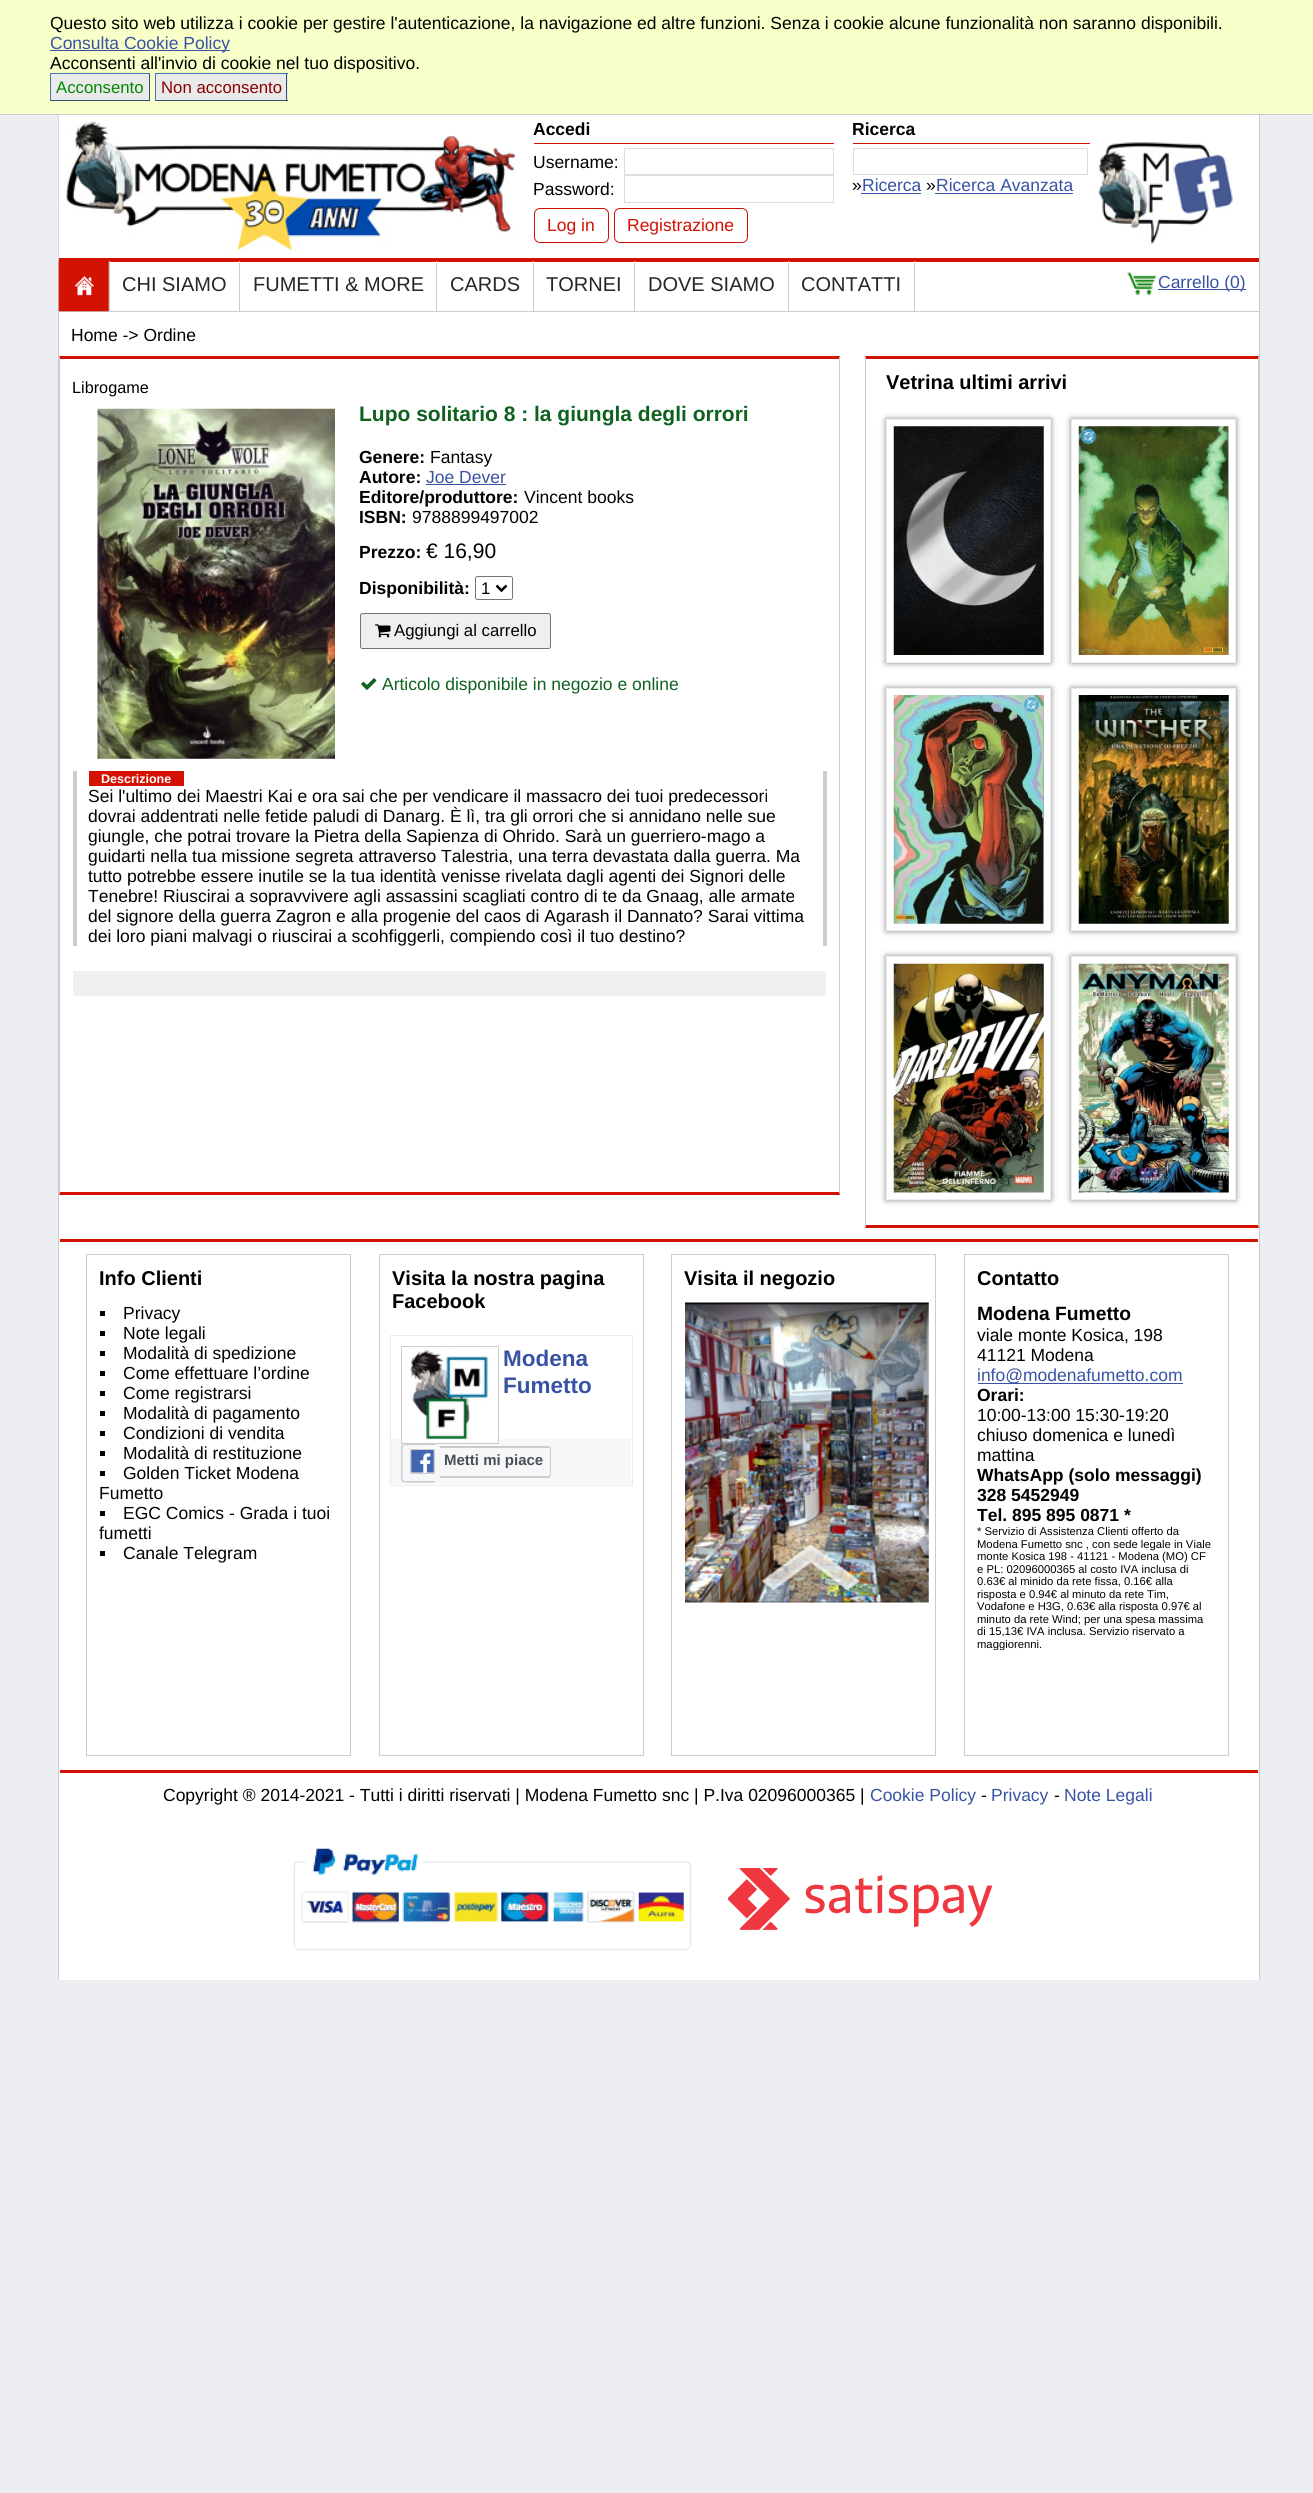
#include <cairo.h>
#include <math.h>
#include <stddef.h>

static cairo_t *c;
static void C(unsigned color){cairo_set_source_rgb(c, (color >> 16) / 255.0, (color >> 8 & 255) / 255.0, (color & 255) / 255.0);}
static void F(const char *family, double size, int italic, int bold){cairo_select_font_face(c, family, italic ? CAIRO_FONT_SLANT_ITALIC : CAIRO_FONT_SLANT_NORMAL,bold ? CAIRO_FONT_WEIGHT_BOLD : CAIRO_FONT_WEIGHT_NORMAL);cairo_set_font_size(c, size);}
static void T(double x, double y, const char *s){cairo_move_to(c, x, y);cairo_show_text(c, s);}
static void R(double x, double y, double w, double h){cairo_rectangle(c, x, y, w, h);cairo_fill(c);}
static void Q(double x, double y, double w, double h, double r){cairo_new_sub_path(c);cairo_arc(c, x + w - r, y + h - r, r, 0, M_PI / 2);cairo_arc(c, x + r, y + h - r, r, M_PI / 2, M_PI);cairo_arc(c, x + r, y + r, r, M_PI, 1.5 * M_PI);cairo_arc(c, x + w - r, y + r, r, 1.5 * M_PI, 2 * M_PI);cairo_close_path(c);}
static void S(double x, double y, double w, double h, double r, double blur, double alpha){cairo_push_group_with_content(c, CAIRO_CONTENT_ALPHA);cairo_set_operator(c, CAIRO_OPERATOR_SOURCE);for (int i = 15; i >= -15 && fmin(w, h) + blur * i / 3 > 0; i -= 2) {double e = blur * i / 6;cairo_set_source_rgba(c, 0, 0, 0, alpha * erfc((i - 1) / 8.5) / 2);Q(x - e, y - e, w + 2 * e, h + 2 * e, fmax(0, fmin(r + e + blur * .6, fmin(w, h) / 2 + e)));cairo_fill(c);}cairo_pattern_t *soft = cairo_pop_group(c);cairo_mask(c, soft);cairo_pattern_destroy(soft);}
static void I(const char *path, double x, double y, double w, double h){cairo_surface_t *image = cairo_image_surface_create_from_png(path);cairo_save(c);cairo_set_source_surface(c, image, x, y);cairo_rectangle(c, x, y, w, h);cairo_fill(c);cairo_restore(c);cairo_surface_destroy(image);}
int main(void) {
cairo_surface_t *surface = cairo_image_surface_create(CAIRO_FORMAT_RGB24, 1313, 2493);
c = cairo_create(surface);
cairo_font_options_t *options = cairo_font_options_create();
cairo_font_options_set_hint_metrics(options, CAIRO_HINT_METRICS_OFF);
cairo_font_options_set_hint_style(options, CAIRO_HINT_STYLE_NONE);
cairo_set_font_options(c, options);
cairo_set_miter_limit(c, 4);
C(0xeceef1);
cairo_paint(c);
C(0xf8ffc9);
R(0,0,1313,114);
C(0xcccccc);
R(0,114,1313,1);
F("Liberation Sans",17.5,0,0);
C(0x000000);
T(50,29,"Questo sito web utilizza i cookie per gestire l'autenticazione, la navigazione ed altre funzioni. Senza i cookie alcune funzionalità non saranno disponibili.");
C(0x3852a4);
R(50,50,180,1);
T(50,49,"Consulta Cookie Policy");
C(0x000000);
T(50,69,"Acconsenti all'invio di cookie nel tuo dispositivo.");
C(0xeaeaea);
R(51,74,98,26);
C(0x417cab);
R(50,73,100,1);
C(0x2b5372);
R(149,73,1,28);
R(50,100,100,1);
C(0x417cab);
R(50,73,1,28);
F("Liberation Sans",16.75,0,0);
C(0x008800);
T(56,93,"Acconsento");
C(0xeaeaea);
R(156,74,132,26);
C(0x417cab);
R(155,73,133,1);
C(0x2b5372);
R(286,73,1,28);
R(155,100,133,1);
C(0x417cab);
R(155,73,1,28);
C(0x880000);
T(161,93,"Non acconsento");
C(0xffffff);
R(59,115,1200,1865);
C(0xcccccc);
R(1259,115,1,1865);
R(58,115,1,1865);
I("1.png",58,115,458,143);
C(0xd41203);
R(534,143,300,1);
F("Liberation Sans",17.5,0,1);
C(0x000000);
T(533,135,"Accedi");
F("Liberation Sans",17.5,0,0);
T(533,168,"Username:");
cairo_rectangle(c,624.5,148.5,209,26);
C(0xdddddd);
cairo_set_line_width(c,1);
cairo_stroke(c);
C(0x000000);
T(533,195,"Password:");
cairo_rectangle(c,624.5,175.5,209,27);
C(0xdddddd);
cairo_stroke(c);
Q(534.5,208.5,74,34,5.5);
C(0xd41203);
cairo_stroke(c);
T(547,231,"Log in");
Q(614.5,208.5,133,34,5.5);
cairo_stroke(c);
T(627,231,"Registrazione");
R(853,143,237,1);
F("Liberation Sans",17.5,0,1);
C(0x000000);
T(852,135,"Ricerca");
cairo_rectangle(c,853.5,148.5,234,26);
C(0xdddddd);
cairo_stroke(c);
F("Liberation Sans",17.5,0,0);
C(0x000000);
T(852,191,"»");
C(0x3852a4);
T(862,191,"Ricerca");
R(861,193,60,1);
C(0x000000);
T(926,191,"»");
C(0x3852a4);
T(936,191,"Ricerca Avanzata");
R(935,193,138,1);
I("2.png",1098,142,135,102);
C(0xd41203);
R(59,258,1200,4);
C(0xcccccc);
R(59,311,1200,1);
R(109,261,1,50);
I("3.png",58,261,51,51);
R(239,261,1,50);
F("Liberation Sans",20,0,0);
C(0x262626);
T(122,291,"CHI SIAMO");
C(0xcccccc);
R(436,261,1,50);
C(0x262626);
T(253,291,"FUMETTI & MORE");
C(0xcccccc);
R(533,261,1,50);
C(0x262626);
T(450,291,"CARDS");
C(0xcccccc);
R(634,261,1,50);
C(0x262626);
T(546,291,"TORNEI");
C(0xcccccc);
R(788,261,1,50);
C(0x262626);
T(648,291,"DOVE SIAMO");
C(0xcccccc);
R(914,261,1,50);
C(0x262626);
T(801,291,"CONTATTI");
I("4.png",1127,272,30,24);
C(0x3852a4);
R(1158,289,88,1);
F("Liberation Sans",17.5,0,0);
T(1158,288,"Carrello (0)");
C(0x000000);
T(71,341,"Home -> Ordine");
C(0xd41203);
cairo_new_path(c);
cairo_move_to(c,59,356);
cairo_line_to(c,840,356);
cairo_line_to(c,839,359);
cairo_line_to(c,60,359);
cairo_close_path(c);
cairo_fill(c);
C(0xcccccc);
cairo_new_path(c);
cairo_move_to(c,840,356);
cairo_line_to(c,840,1195);
cairo_line_to(c,839,1192);
cairo_line_to(c,839,359);
cairo_close_path(c);
cairo_fill(c);
C(0xd41203);
cairo_new_path(c);
cairo_move_to(c,840,1195);
cairo_line_to(c,59,1195);
cairo_line_to(c,60,1192);
cairo_line_to(c,839,1192);
cairo_close_path(c);
cairo_fill(c);
C(0xcccccc);
cairo_new_path(c);
cairo_move_to(c,59,1195);
cairo_line_to(c,59,356);
cairo_line_to(c,60,359);
cairo_line_to(c,60,1192);
cairo_close_path(c);
cairo_fill(c);
F("Liberation Sans",16.25,0,0);
C(0x000000);
T(72,393,"Librogame");
I("5.png",97,408,238,351);
F("Liberation Sans",21,0,1);
C(0x0f611f);
T(359,421,"Lupo solitario 8 : la giungla degli orrori");
F("Liberation Sans",17.5,0,1);
C(0x000000);
T(359,463,"Genere:");
F("Liberation Sans",17.5,0,0);
T(430,463,"Fantasy");
F("Liberation Sans",17.5,0,1);
T(359,483,"Autore:");
F("Liberation Sans",17.5,0,0);
C(0x3852a4);
T(426,483,"Joe Dever");
R(426,484,80,1);
F("Liberation Sans",17.5,0,1);
C(0x000000);
T(359,503,"Editore/produttore:");
F("Liberation Sans",17.5,0,0);
T(524,503,"Vincent books");
F("Liberation Sans",17.5,0,1);
T(359,523,"ISBN:");
F("Liberation Sans",17.5,0,0);
T(412,523,"9788899497002");
F("Liberation Sans",17.5,0,1);
T(359,558,"Prezzo:");
F("Liberation Sans",21,0,0);
T(426,558,"€ 16,90");
F("Liberation Sans",17.5,0,1);
T(359,594,"Disponibilità:");
Q(475.5,576.5,37,23,2);
C(0x767676);
cairo_stroke(c);
cairo_new_path(c);
cairo_move_to(c,496.5,585.5);
cairo_line_to(c,501.5,590.5);
cairo_line_to(c,506.5,585.5);
C(0x000000);
cairo_set_line_width(c,2.5);
cairo_stroke(c);
F("Liberation Sans",16.75,0,0);
T(481,594,"1");
C(0xefefef);
Q(360.5,613.5,190,35,2);
cairo_fill_preserve(c);
C(0x767676);
cairo_set_line_width(c,1);
cairo_stroke(c);
I("6.png",375,624,16,14);
C(0x000000);
T(394,636,"Aggiungi al carrello");
I("7.png",361,678,16,12);
F("Liberation Sans",17.5,0,0);
C(0x0f611f);
T(382,690,"Articolo disponibile in negozio e online");
C(0xcccccc);
R(823,771,4,175);
R(73,771,4,175);
C(0xd41203);
R(89,771,95,15);
F("Liberation Sans",12.5,0,1);
C(0xffffff);
T(101,783,"Descrizione");
F("Liberation Sans",17.5,0,0);
C(0x000000);
T(88,802,"Sei l'ultimo dei Maestri Kai e ora sai che per vendicare il massacro dei tuoi predecessori");
T(88,822,"dovrai addentrati nelle fetide paludi di Danarg. È lì, tra gli orrori che si annidano nelle sue");
T(88,842,"giungle, che potrai trovare la Pietra della Sapienza di Ohrido. Sarà un guerriero-mago a");
T(88,862,"guidarti nella tua missione segreta attraverso Talestria, una terra devastata dalla guerra. Ma");
T(88,882,"tutto potrebbe essere inutile se la tua identità venisse rivelata dagli agenti dei Signori delle");
T(88,902,"Tenebre! Riuscirai a sopravvivere agli assassini scagliati contro di te da Gnaag, alle armate");
T(88,922,"del signore della guerra Zagron e alla progenie del caos di Agarash il Dannato? Sarai vittima");
T(88,942,"dei loro piani malvagi o riuscirai a scohfiggerli, compiendo così il tuo destino?");
C(0xf0f0f0);
R(73,971,753,25);
C(0xd41203);
cairo_new_path(c);
cairo_move_to(c,865,356);
cairo_line_to(c,1259,356);
cairo_line_to(c,1258,359);
cairo_line_to(c,866,359);
cairo_close_path(c);
cairo_fill(c);
C(0xcccccc);
cairo_new_path(c);
cairo_move_to(c,1259,356);
cairo_line_to(c,1259,1228);
cairo_line_to(c,1258,1225);
cairo_line_to(c,1258,359);
cairo_close_path(c);
cairo_fill(c);
C(0xd41203);
cairo_new_path(c);
cairo_move_to(c,1259,1228);
cairo_line_to(c,865,1228);
cairo_line_to(c,866,1225);
cairo_line_to(c,1258,1225);
cairo_close_path(c);
cairo_fill(c);
C(0xcccccc);
cairo_new_path(c);
cairo_move_to(c,865,1228);
cairo_line_to(c,865,356);
cairo_line_to(c,866,359);
cairo_line_to(c,866,1225);
cairo_close_path(c);
cairo_fill(c);
F("Liberation Sans",20,0,1);
C(0x000000);
T(886,389,"Vetrina ultimi arrivi");
cairo_save(c);
cairo_set_fill_rule(c,CAIRO_FILL_RULE_EVEN_ODD);
cairo_new_path(c);
cairo_move_to(c,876,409);
cairo_line_to(c,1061,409);
cairo_line_to(c,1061,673);
cairo_line_to(c,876,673);
cairo_close_path(c);
cairo_move_to(c,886,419);
cairo_line_to(c,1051,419);
cairo_line_to(c,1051,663);
cairo_line_to(c,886,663);
cairo_close_path(c);
cairo_clip(c);
C(0x888888);
S(886,419,165,244,0,3,1);
cairo_restore(c);
cairo_rectangle(c,886.5,419.5,164,243);
C(0xededed);
cairo_stroke(c);
I("8.png",893,426,151,229);
cairo_save(c);
cairo_set_fill_rule(c,CAIRO_FILL_RULE_EVEN_ODD);
cairo_new_path(c);
cairo_move_to(c,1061,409);
cairo_line_to(c,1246,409);
cairo_line_to(c,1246,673);
cairo_line_to(c,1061,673);
cairo_close_path(c);
cairo_move_to(c,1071,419);
cairo_line_to(c,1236,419);
cairo_line_to(c,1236,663);
cairo_line_to(c,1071,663);
cairo_close_path(c);
cairo_clip(c);
C(0x888888);
S(1071,419,165,244,0,3,1);
cairo_restore(c);
cairo_rectangle(c,1071.5,419.5,164,243);
cairo_stroke(c);
I("9.png",1078,426,151,229);
cairo_save(c);
cairo_set_fill_rule(c,CAIRO_FILL_RULE_EVEN_ODD);
cairo_new_path(c);
cairo_move_to(c,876,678);
cairo_line_to(c,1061,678);
cairo_line_to(c,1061,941);
cairo_line_to(c,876,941);
cairo_close_path(c);
cairo_move_to(c,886,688);
cairo_line_to(c,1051,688);
cairo_line_to(c,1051,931);
cairo_line_to(c,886,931);
cairo_close_path(c);
cairo_clip(c);
C(0x888888);
S(886,688,165,243,0,3,1);
cairo_restore(c);
cairo_rectangle(c,886.5,688.5,164,242);
cairo_stroke(c);
I("10.png",893,695,151,229);
cairo_save(c);
cairo_set_fill_rule(c,CAIRO_FILL_RULE_EVEN_ODD);
cairo_new_path(c);
cairo_move_to(c,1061,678);
cairo_line_to(c,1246,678);
cairo_line_to(c,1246,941);
cairo_line_to(c,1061,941);
cairo_close_path(c);
cairo_move_to(c,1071,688);
cairo_line_to(c,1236,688);
cairo_line_to(c,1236,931);
cairo_line_to(c,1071,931);
cairo_close_path(c);
cairo_clip(c);
C(0x888888);
S(1071,688,165,243,0,3,1);
cairo_restore(c);
cairo_rectangle(c,1071.5,688.5,164,242);
cairo_stroke(c);
I("11.png",1078,695,151,229);
cairo_save(c);
cairo_set_fill_rule(c,CAIRO_FILL_RULE_EVEN_ODD);
cairo_new_path(c);
cairo_move_to(c,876,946);
cairo_line_to(c,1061,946);
cairo_line_to(c,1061,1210);
cairo_line_to(c,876,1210);
cairo_close_path(c);
cairo_move_to(c,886,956);
cairo_line_to(c,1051,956);
cairo_line_to(c,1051,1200);
cairo_line_to(c,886,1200);
cairo_close_path(c);
cairo_clip(c);
C(0x888888);
S(886,956,165,244,0,3,1);
cairo_restore(c);
cairo_rectangle(c,886.5,956.5,164,243);
cairo_stroke(c);
I("12.png",893,963,151,230);
cairo_save(c);
cairo_set_fill_rule(c,CAIRO_FILL_RULE_EVEN_ODD);
cairo_new_path(c);
cairo_move_to(c,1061,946);
cairo_line_to(c,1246,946);
cairo_line_to(c,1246,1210);
cairo_line_to(c,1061,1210);
cairo_close_path(c);
cairo_move_to(c,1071,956);
cairo_line_to(c,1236,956);
cairo_line_to(c,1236,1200);
cairo_line_to(c,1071,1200);
cairo_close_path(c);
cairo_clip(c);
C(0x888888);
S(1071,956,165,244,0,3,1);
cairo_restore(c);
cairo_rectangle(c,1071.5,956.5,164,243);
cairo_stroke(c);
I("13.png",1078,963,151,230);
C(0xd41203);
R(60,1239,1198,3);
R(60,1770,1198,3);
cairo_rectangle(c,86.5,1254.5,264,501);
C(0xcccccc);
cairo_stroke(c);
C(0x000000);
T(99,1285,"Info Clienti");
R(100,1311,5,5);
F("Liberation Sans",17.5,0,0);
T(123,1319,"Privacy");
R(100,1331,5,5);
T(123,1339,"Note legali");
R(100,1351,5,5);
T(123,1359,"Modalità di spedizione");
R(100,1371,5,5);
T(123,1379,"Come effettuare l’ordine");
R(100,1391,5,5);
T(123,1399,"Come registrarsi");
R(100,1411,5,5);
T(123,1419,"Modalità di pagamento");
R(100,1431,5,5);
T(123,1439,"Condizioni di vendita");
R(100,1451,5,5);
T(123,1459,"Modalità di restituzione");
R(100,1471,5,5);
T(123,1479,"Golden Ticket Modena");
T(99,1499,"Fumetto");
R(100,1511,5,5);
T(123,1519,"EGC Comics - Grada i tuoi");
T(99,1539,"fumetti");
R(100,1551,5,5);
T(123,1559,"Canale Telegram");
cairo_rectangle(c,379.5,1254.5,264,501);
C(0xcccccc);
cairo_stroke(c);
F("Liberation Sans",20,0,1);
C(0x000000);
T(392,1285,"Visita la nostra pagina");
T(392,1308,"Facebook");
cairo_rectangle(c,390.5,1335.5,242,150);
C(0xe9ebee);
cairo_stroke(c);
C(0xf6f7f9);
R(391,1439,240,45);
cairo_rectangle(c,401.5,1346.5,97,97);
C(0xcccccc);
cairo_stroke(c);
I("14.png",402,1348,96,95);
F("Liberation Sans",22.5,0,1);
C(0x3852a4);
T(503,1366,"Modena");
T(503,1393,"Fumetto");
C(0xcccccc);
cairo_set_fill_rule(c,CAIRO_FILL_RULE_EVEN_ODD);
cairo_new_path(c);
cairo_move_to(c,405,1444);
cairo_line_to(c,435,1444);
cairo_line_to(c,435,1482.5);
cairo_line_to(c,405,1482.5);
cairo_curve_to(c,403,1482.5,401,1481,401,1479);
cairo_line_to(c,401,1447.5);
cairo_curve_to(c,401,1445.5,403,1444,405,1444);
cairo_close_path(c);
cairo_move_to(c,405,1445);
cairo_line_to(c,435,1445);
cairo_line_to(c,435,1481);
cairo_line_to(c,405,1481);
cairo_curve_to(c,403.5,1481,402.5,1480,402.5,1479);
cairo_line_to(c,402.5,1447.5);
cairo_curve_to(c,402.5,1446,403.5,1445,405,1445);
cairo_close_path(c);
cairo_fill(c);
cairo_rectangle(c,410.5,1449.5,24,24);
cairo_stroke(c);
I("15.png",411,1450,23,23);
cairo_new_path(c);
cairo_move_to(c,440,1446);
cairo_line_to(c,548,1446);
cairo_curve_to(c,550,1446,551,1448,551,1450);
cairo_line_to(c,551,1474);
cairo_curve_to(c,551,1476,550,1478,548,1478);
cairo_line_to(c,440,1478);
cairo_close_path(c);
cairo_move_to(c,440,1448);
cairo_line_to(c,548,1448);
cairo_curve_to(c,549,1448,550,1449,550,1450);
cairo_line_to(c,550,1474);
cairo_curve_to(c,550,1475,549,1476,548,1476);
cairo_line_to(c,440,1476);
cairo_close_path(c);
cairo_fill(c);
F("Liberation Sans",15,0,1);
C(0x4b4f56);
T(444,1465,"Metti mi piace");
cairo_rectangle(c,671.5,1254.5,264,501);
C(0xcccccc);
cairo_stroke(c);
F("Liberation Sans",20,0,1);
C(0x000000);
T(684,1285,"Visita il negozio");
I("16.png",685,1302,244,301);
cairo_rectangle(c,964.5,1254.5,264,501);
C(0xcccccc);
cairo_stroke(c);
C(0x000000);
T(977,1285,"Contatto");
F("Liberation Sans",19.25,0,1);
T(977,1320,"Modena Fumetto");
F("Liberation Sans",17.5,0,0);
T(977,1341,"viale monte Kosica, 198");
T(977,1361,"41121 Modena");
C(0x3852a4);
R(978,1383,205,1);
T(977,1381,"info@modenafumetto.com");
F("Liberation Sans",17.5,0,1);
C(0x000000);
T(977,1401,"Orari:");
F("Liberation Sans",17.5,0,0);
T(977,1421,"10:00-13:00 15:30-19:20");
T(977,1441,"chiuso domenica e lunedì");
T(977,1461,"mattina");
F("Liberation Sans",17.5,0,1);
T(977,1481,"WhatsApp (solo messaggi)");
T(977,1501,"328 5452949");
T(977,1521,"Tel. 895 895 0871 *");
F("Liberation Sans",11.25,0,0);
T(977,1535,"* Servizio di Assistenza Clienti offerto da");
T(977,1548,"Modena Fumetto snc , con sede legale in Viale");
T(977,1560,"monte Kosica 198 - 41121 - Modena (MO) CF");
T(977,1573,"e PL: 02096000365 al costo IVA inclusa di");
T(977,1585,"0.63€ al minido da rete fissa, 0.16€ alla");
T(977,1598,"risposta e 0.94€ al minuto da rete Tim,");
T(977,1610,"Vodafone e H3G, 0.63€ alla risposta 0.97€ al");
T(977,1623,"minuto da rete Wind; per una spesa massima");
T(977,1635,"di 15,13€ IVA inclusa. Servizio riservato a");
cairo_save(c);
cairo_set_fill_rule(c,CAIRO_FILL_RULE_WINDING);
cairo_rectangle(c,965,1303,263,347);
cairo_clip(c);
T(977,1648,"maggiorenni.");
cairo_restore(c);
F("Liberation Sans",17.5,0,0);
T(163,1801,"Copyright ® 2014-2021 - Tutti i diritti riservati | Modena Fumetto snc | P.Iva 02096000365 |");
C(0x3852a4);
T(870,1801,"Cookie Policy");
C(0x000000);
T(981,1801,"-");
C(0x3852a4);
T(991,1801,"Privacy");
C(0x000000);
T(1054,1801,"-");
C(0x3852a4);
T(1064,1801,"Note Legali");
I("17.png",293,1848,399,103);
I("18.png",728,1868,265,62);
cairo_surface_write_to_png(surface, "o.png");
cairo_font_options_destroy(options);
cairo_destroy(c);
cairo_surface_destroy(surface);
return 0;
}
